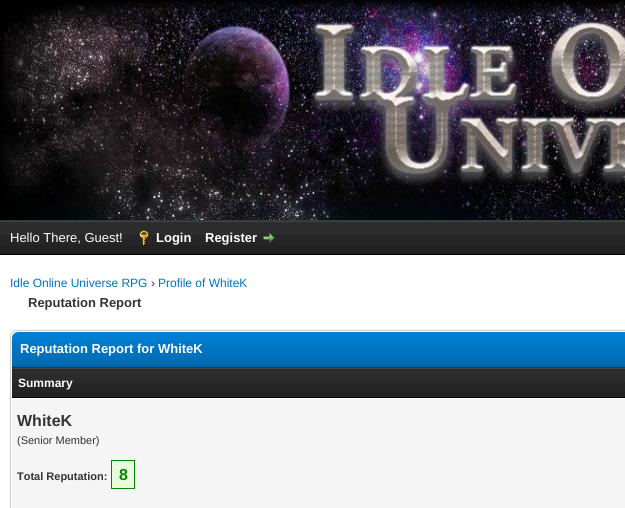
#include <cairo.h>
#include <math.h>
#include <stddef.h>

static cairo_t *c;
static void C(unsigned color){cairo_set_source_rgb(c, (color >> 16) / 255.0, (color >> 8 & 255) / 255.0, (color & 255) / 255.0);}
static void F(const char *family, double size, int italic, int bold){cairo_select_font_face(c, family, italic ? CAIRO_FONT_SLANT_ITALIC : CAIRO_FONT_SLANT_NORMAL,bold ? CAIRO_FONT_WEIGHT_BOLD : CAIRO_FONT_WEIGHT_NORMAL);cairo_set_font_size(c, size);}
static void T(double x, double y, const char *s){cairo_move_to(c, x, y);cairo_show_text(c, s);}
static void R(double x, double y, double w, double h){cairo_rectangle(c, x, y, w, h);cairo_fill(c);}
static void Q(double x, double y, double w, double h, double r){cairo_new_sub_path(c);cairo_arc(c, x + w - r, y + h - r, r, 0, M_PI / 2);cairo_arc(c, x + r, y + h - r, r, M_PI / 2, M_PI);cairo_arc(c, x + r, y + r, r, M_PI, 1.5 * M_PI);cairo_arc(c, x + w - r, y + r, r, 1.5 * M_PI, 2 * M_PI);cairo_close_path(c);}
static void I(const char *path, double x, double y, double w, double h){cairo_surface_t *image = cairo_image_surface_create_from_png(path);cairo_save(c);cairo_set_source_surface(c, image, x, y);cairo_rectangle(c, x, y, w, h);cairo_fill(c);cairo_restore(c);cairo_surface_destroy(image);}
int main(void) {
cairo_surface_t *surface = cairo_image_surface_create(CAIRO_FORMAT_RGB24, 625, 508);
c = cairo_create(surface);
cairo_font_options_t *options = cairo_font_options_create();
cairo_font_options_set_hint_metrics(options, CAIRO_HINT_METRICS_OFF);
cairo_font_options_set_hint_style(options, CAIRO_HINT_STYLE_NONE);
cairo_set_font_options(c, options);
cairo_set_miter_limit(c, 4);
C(0xffffff);
cairo_paint(c);
I("1.png",0,0,625,220);
C(0x263c30);
R(0,220,625,1);
I("2.png",0,222,625,32);
C(0x444444);
R(0,221,625,1);
C(0x000000);
R(0,254,625,1);
F("Liberation Sans",13,0,0);
C(0xffffff);
T(10,242,"Hello There, Guest!");
I("3.png",139,230,10,15);
F("Liberation Sans",13,0,1);
T(156,242,"Login");
T(205,242,"Register");
I("4.png",263,233,12,10);
F("Liberation Sans",12,0,0);
C(0x0072bc);
T(10,287,"Idle Online Universe RPG");
C(0x333333);
T(151,287,"›");
C(0x0072bc);
T(158,287,"Profile of WhiteK");
F("Liberation Sans",13,0,1);
C(0x333333);
T(28,307,"Reputation Report");
Q(10.5,330.5,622,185,6.5);
C(0xcccccc);
cairo_set_line_width(c,1);
cairo_stroke(c);
I("5.png",12,332,613,35);
C(0x263c30);
R(12,367,613,1);
C(0xffffff);
T(20,353,"Reputation Report for WhiteK");
I("6.png",12,369,613,28);
C(0x444444);
R(12,368,613,1);
C(0x000000);
R(12,397,613,1);
F("Liberation Sans",12,0,1);
C(0xffffff);
T(18,387,"Summary");
C(0xf5f5f5);
R(12,399,613,109);
F("Liberation Sans",16,0,1);
C(0x333333);
T(17,426,"WhiteK");
F("Liberation Sans",11,0,0);
T(17,444,"(Senior Member)");
F("Liberation Sans",11,0,1);
T(17,480,"Total Reputation:");
C(0xe8fcdc);
cairo_rectangle(c,111.5,460.5,23,28);
cairo_fill_preserve(c);
C(0x008800);
cairo_stroke(c);
F("Liberation Sans",16,0,1);
T(119,480,"8");
cairo_surface_write_to_png(surface, "o.png");
cairo_font_options_destroy(options);
cairo_destroy(c);
cairo_surface_destroy(surface);
return 0;
}
